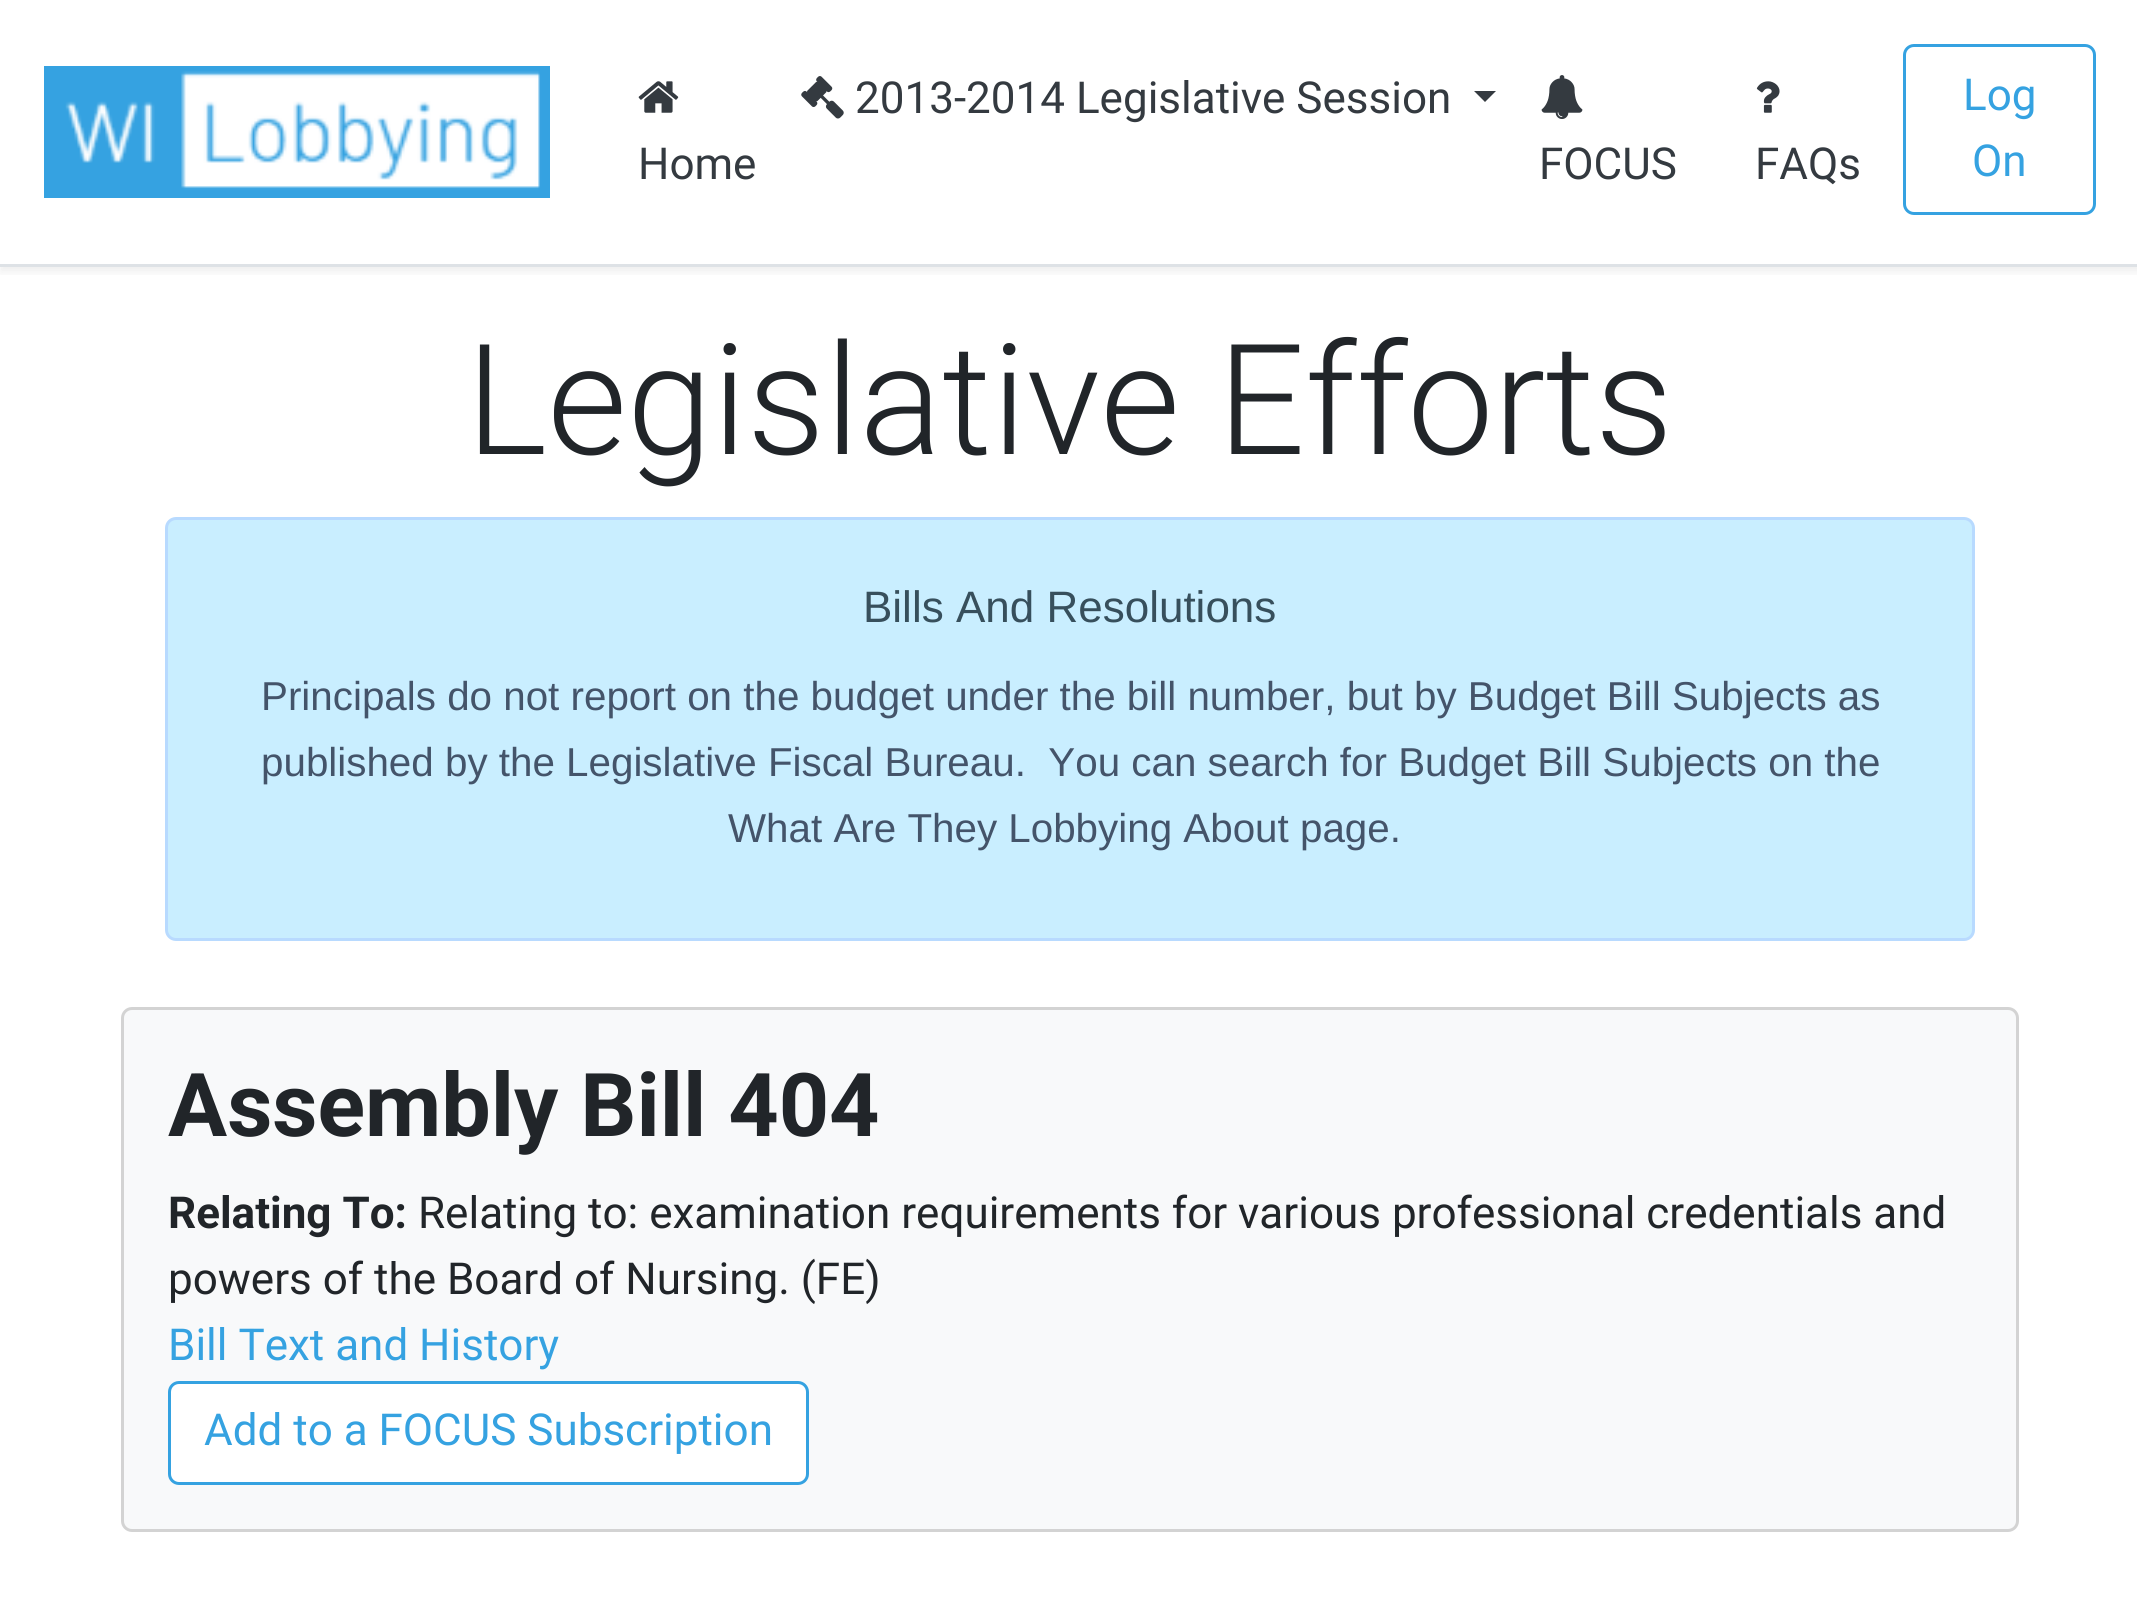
#include <cairo.h>
#include <math.h>
#include <stddef.h>

static cairo_t *c;
static void C(unsigned color){cairo_set_source_rgb(c, (color >> 16) / 255.0, (color >> 8 & 255) / 255.0, (color & 255) / 255.0);}
static void F(const char *family, double size, int italic, int bold){cairo_select_font_face(c, family, italic ? CAIRO_FONT_SLANT_ITALIC : CAIRO_FONT_SLANT_NORMAL,bold ? CAIRO_FONT_WEIGHT_BOLD : CAIRO_FONT_WEIGHT_NORMAL);cairo_set_font_size(c, size);}
static void T(double x, double y, const char *s){cairo_move_to(c, x, y);cairo_show_text(c, s);}
static void R(double x, double y, double w, double h){cairo_rectangle(c, x, y, w, h);cairo_fill(c);}
static void Q(double x, double y, double w, double h, double r){cairo_new_sub_path(c);cairo_arc(c, x + w - r, y + h - r, r, 0, M_PI / 2);cairo_arc(c, x + r, y + h - r, r, M_PI / 2, M_PI);cairo_arc(c, x + r, y + r, r, M_PI, 1.5 * M_PI);cairo_arc(c, x + w - r, y + r, r, 1.5 * M_PI, 2 * M_PI);cairo_close_path(c);}
static void S(double x, double y, double w, double h, double r, double blur, double alpha){cairo_push_group_with_content(c, CAIRO_CONTENT_ALPHA);cairo_set_operator(c, CAIRO_OPERATOR_SOURCE);for (int i = 15; i >= -15 && fmin(w, h) + blur * i / 3 > 0; i -= 2) {double e = blur * i / 6;cairo_set_source_rgba(c, 0, 0, 0, alpha * erfc((i - 1) / 8.5) / 2);Q(x - e, y - e, w + 2 * e, h + 2 * e, fmax(0, fmin(r + e + blur * .6, fmin(w, h) / 2 + e)));cairo_fill(c);}cairo_pattern_t *soft = cairo_pop_group(c);cairo_mask(c, soft);cairo_pattern_destroy(soft);}
static void I(const char *path, double x, double y, double w, double h){cairo_surface_t *image = cairo_image_surface_create_from_png(path);cairo_save(c);cairo_set_source_surface(c, image, x, y);cairo_rectangle(c, x, y, w, h);cairo_fill(c);cairo_restore(c);cairo_surface_destroy(image);}
int main(void) {
cairo_surface_t *surface = cairo_image_surface_create(CAIRO_FORMAT_RGB24, 2137, 1602);
c = cairo_create(surface);
cairo_font_options_t *options = cairo_font_options_create();
cairo_font_options_set_hint_metrics(options, CAIRO_HINT_METRICS_OFF);
cairo_font_options_set_hint_style(options, CAIRO_HINT_STYLE_NONE);
cairo_set_font_options(c, options);
cairo_set_miter_limit(c, 4);
C(0xffffff);
cairo_paint(c);
cairo_save(c);
cairo_rectangle(c,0,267,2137,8);
cairo_clip(c);
C(0x000000);
S(0,6,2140,266,0,5.5,.07);
cairo_restore(c);
C(0xdee2e6);
R(0,264,2137,3);
I("1.png",44,66,506,132);
I("2.png",801,76,43,43);
F("Roboto",44,0,0);
C(0x343a40);
T(855,113,"2013-2014 Legislative Session");
cairo_new_path(c);
cairo_move_to(c,1474,91);
cairo_line_to(c,1496,91);
cairo_line_to(c,1485,102);
cairo_close_path(c);
cairo_fill(c);
I("3.png",638,81,41,32);
T(638,179,"Home");
I("4.png",1541,75,42,44);
T(1539,179,"FOCUS");
I("5.png",1756,81,24,32);
T(1755,179,"FAQs");
Q(1904.5,45.5,190,168,9.5);
C(0x35a2e1);
cairo_set_line_width(c,3);
cairo_stroke(c);
T(1963,110,"Log");
T(1972,176,"On");
F("Roboto Light",154,0,0);
C(0x212529);
T(466,454,"Legislative Efforts");
C(0xc9eeff);
Q(166.5,518.5,1807,421,9.5);
cairo_fill_preserve(c);
C(0xb8daff);
cairo_stroke(c);
F("Liberation Sans",44,0,0);
C(0x374f5c);
T(863,622,"Bills And Resolutions");
F("Liberation Sans",40.35,0,0);
C(0x44546a);
T(261,710,"Principals do not report on the budget under the bill number, but by Budget Bill Subjects as");
T(261,776,"published by the Legislative Fiscal Bureau.  You can search for Budget Bill Subjects on the");
T(728,842,"What Are They Lobbying About page.");
C(0xf8f9fa);
Q(122.5,1008.5,1895,522,9.5);
cairo_fill_preserve(c);
C(0xd3d3d3);
cairo_stroke(c);
F("Roboto",88,0,1);
C(0x212529);
T(168,1136,"Assembly Bill 404");
F("Roboto",44,0,1);
T(168,1228,"Relating To:");
F("Roboto",44,0,0);
T(418,1228,"Relating to: examination requirements for various professional credentials and");
T(168,1294,"powers of the Board of Nursing. (FE)");
C(0x35a2e1);
T(168,1360,"Bill Text and History");
C(0xffffff);
Q(169.5,1382.5,638,101,9.5);
cairo_fill_preserve(c);
C(0x35a2e1);
cairo_stroke(c);
T(204,1445,"Add to a FOCUS Subscription");
cairo_surface_write_to_png(surface, "o.png");
cairo_font_options_destroy(options);
cairo_destroy(c);
cairo_surface_destroy(surface);
return 0;
}
